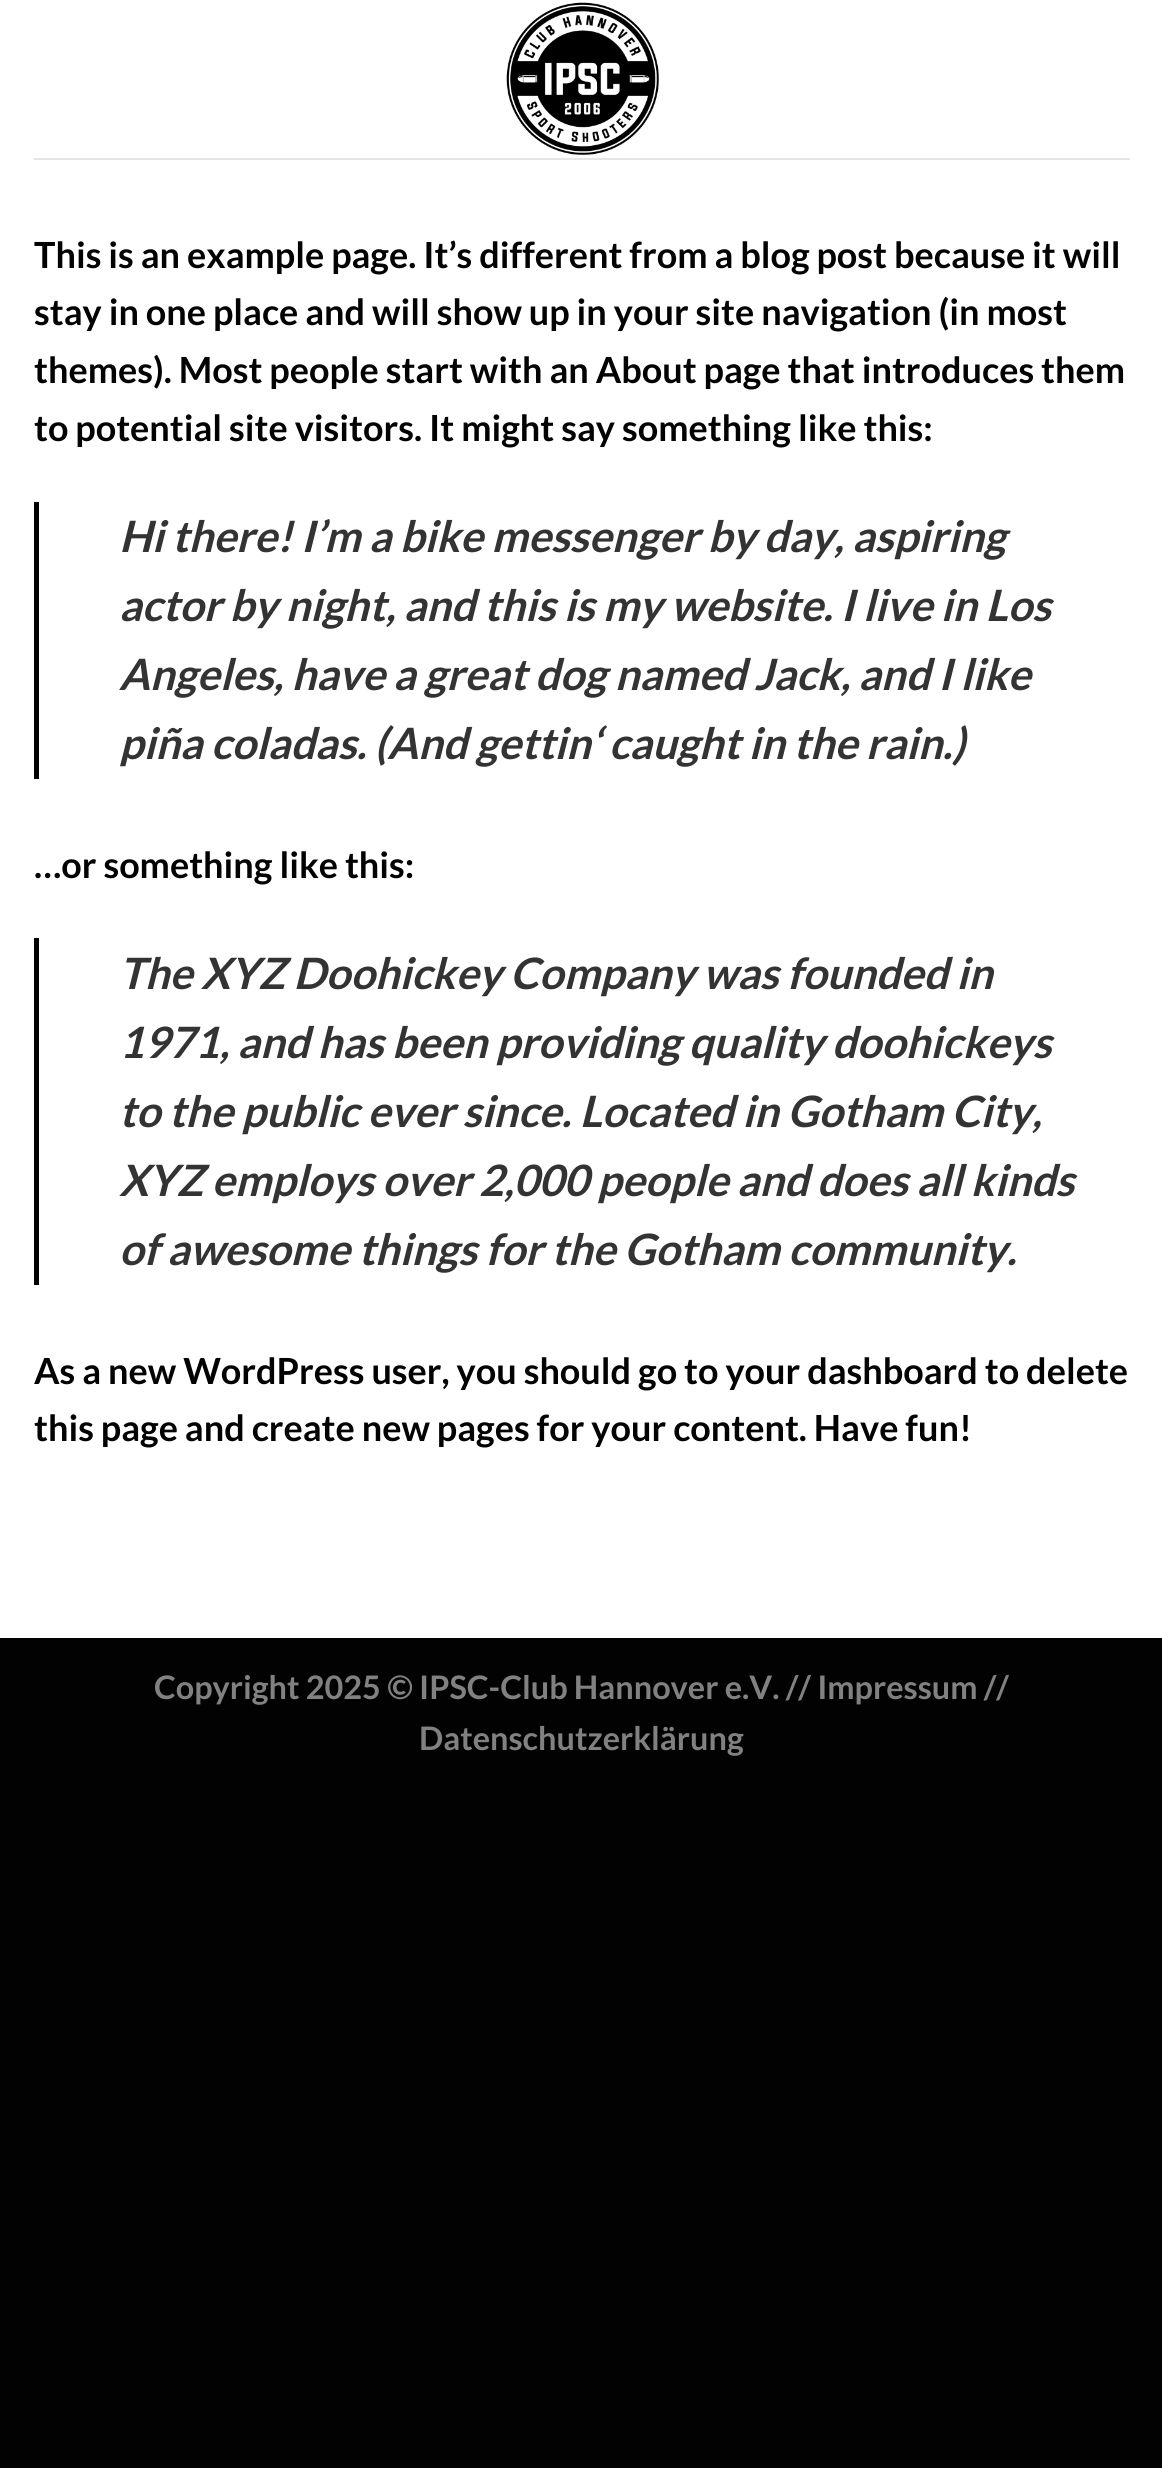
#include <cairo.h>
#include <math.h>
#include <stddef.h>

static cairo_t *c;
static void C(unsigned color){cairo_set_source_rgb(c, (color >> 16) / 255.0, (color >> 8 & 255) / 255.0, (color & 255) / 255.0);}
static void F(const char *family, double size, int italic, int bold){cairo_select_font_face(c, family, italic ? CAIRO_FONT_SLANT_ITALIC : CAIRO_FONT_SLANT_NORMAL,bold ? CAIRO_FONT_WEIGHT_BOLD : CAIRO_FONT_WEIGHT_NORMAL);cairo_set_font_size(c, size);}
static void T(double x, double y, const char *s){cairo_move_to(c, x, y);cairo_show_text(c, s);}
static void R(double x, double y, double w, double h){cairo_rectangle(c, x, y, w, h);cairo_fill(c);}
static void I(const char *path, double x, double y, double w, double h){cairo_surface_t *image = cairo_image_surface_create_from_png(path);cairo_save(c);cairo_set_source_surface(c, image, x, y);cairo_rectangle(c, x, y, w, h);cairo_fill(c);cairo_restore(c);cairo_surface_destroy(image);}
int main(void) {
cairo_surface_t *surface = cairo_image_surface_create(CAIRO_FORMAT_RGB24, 1162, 2468);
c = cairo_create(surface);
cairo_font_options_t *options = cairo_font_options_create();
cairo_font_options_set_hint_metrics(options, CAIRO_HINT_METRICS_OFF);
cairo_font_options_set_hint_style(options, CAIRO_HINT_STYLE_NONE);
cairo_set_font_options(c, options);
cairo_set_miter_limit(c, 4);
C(0x020202);
cairo_paint(c);
C(0xffffff);
R(0,0,1162,1638);
I("1.png",506,2,153,153);
C(0xe6e6e6);
R(34,158,1096,2);
F("Lato",36,0,1);
C(0x020202);
T(34,268,"This is an example page. It’s different from a blog post because it will");
T(34,325,"stay in one place and will show up in your site navigation (in most");
T(34,383,"themes). Most people start with an About page that introduces them");
T(34,441,"to potential site visitors. It might say something like this:");
R(34,502,5,277);
F("Lato",43.2,1,1);
C(0x333333);
T(119,552,"Hi there! I’m a bike messenger by day, aspiring");
T(119,621,"actor by night, and this is my website. I live in Los");
T(119,690,"Angeles, have a great dog named Jack, and I like");
T(119,759,"piña coladas. (And gettin‘ caught in the rain.)");
F("Lato",36,0,1);
C(0x020202);
T(34,878,"…or something like this:");
R(34,938,5,347);
F("Lato",43.2,1,1);
C(0x333333);
T(119,989,"The XYZ Doohickey Company was founded in");
T(119,1058,"1971, and has been providing quality doohickeys");
T(119,1127,"to the public ever since. Located in Gotham City,");
T(119,1196,"XYZ employs over 2,000 people and does all kinds");
T(119,1265,"of awesome things for the Gotham community.");
F("Lato",36,0,1);
C(0x020202);
T(34,1384,"As a new WordPress user, you should go to your dashboard to delete");
T(34,1441,"this page and create new pages for your content. Have fun!");
F("Lato",32.4,0,1);
C(0x818181);
T(154,1699,"Copyright 2025 © IPSC-Club Hannover e.V. // Impressum //");
T(419,1750,"Datenschutzerklärung");
cairo_surface_write_to_png(surface, "o.png");
cairo_font_options_destroy(options);
cairo_destroy(c);
cairo_surface_destroy(surface);
return 0;
}
